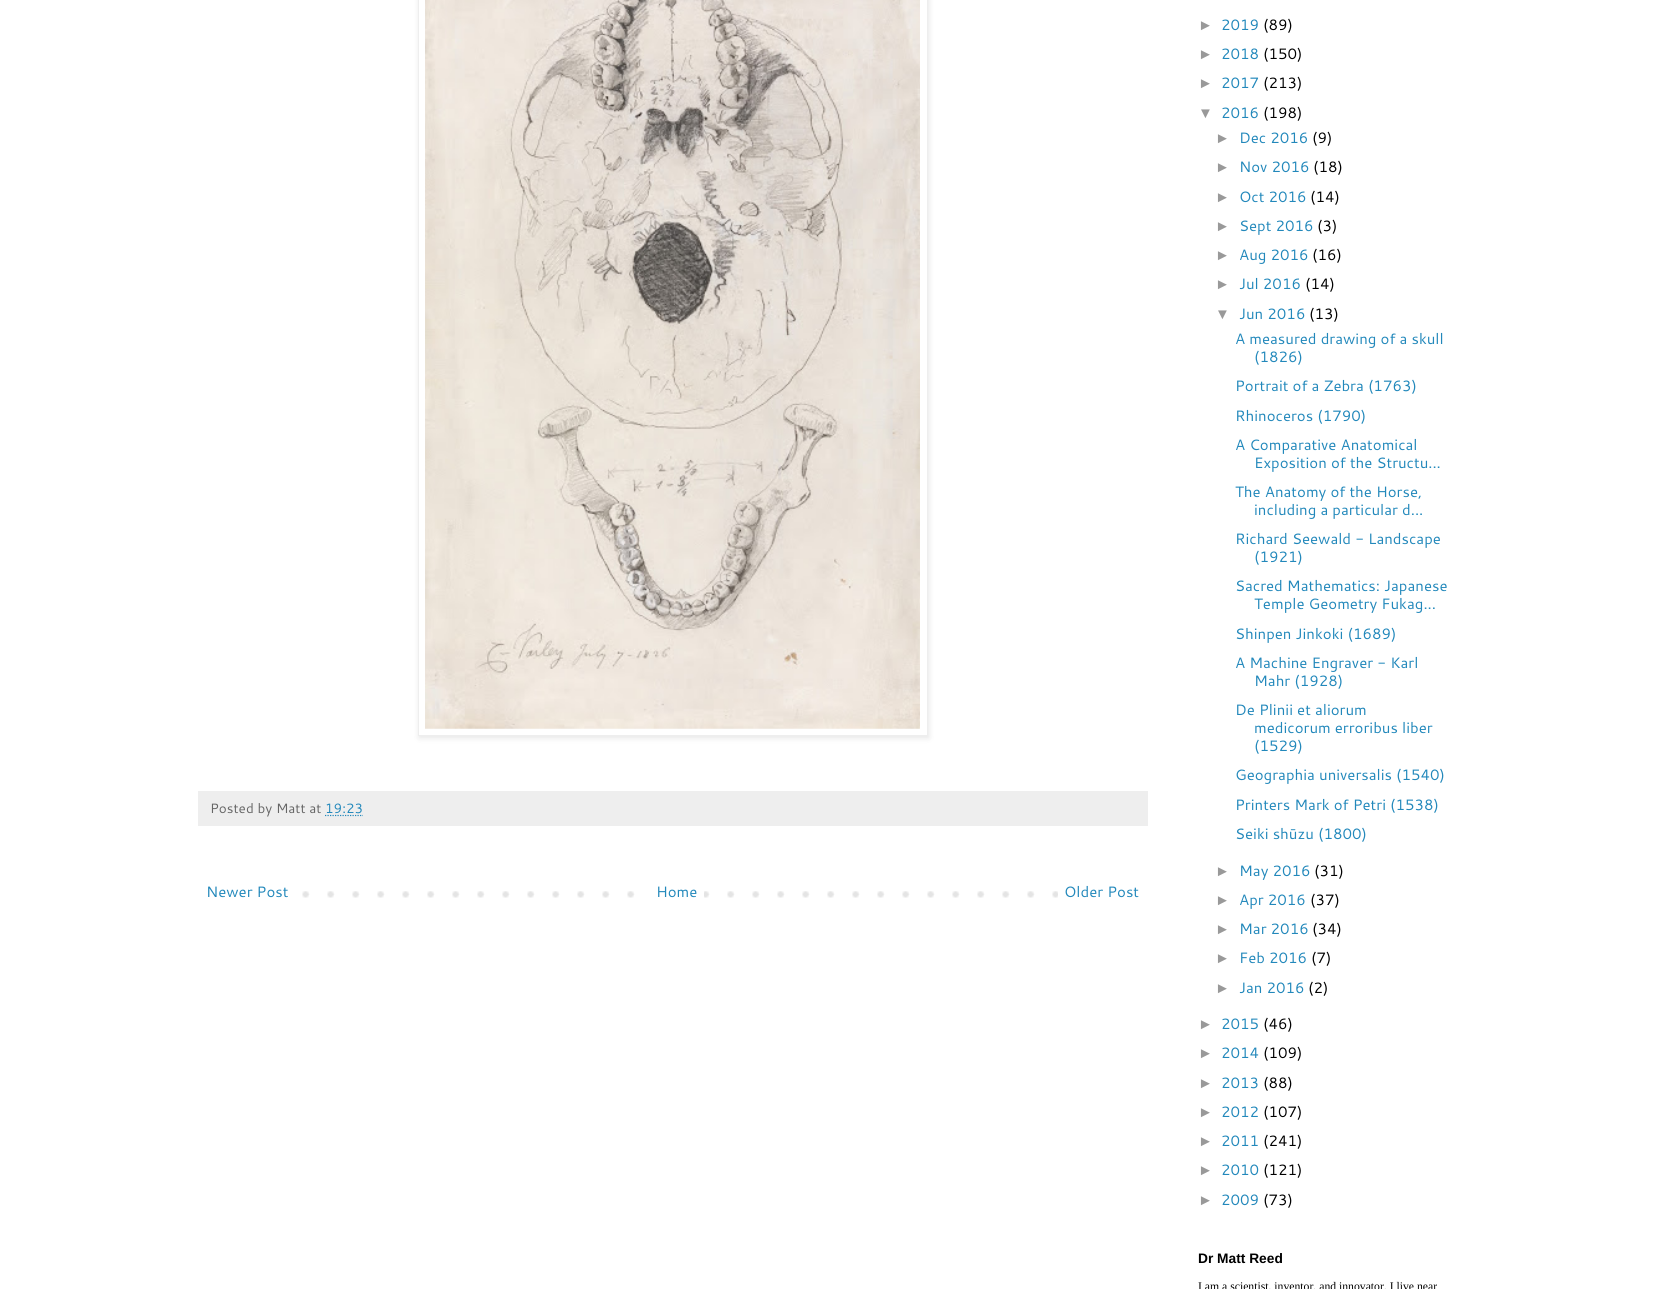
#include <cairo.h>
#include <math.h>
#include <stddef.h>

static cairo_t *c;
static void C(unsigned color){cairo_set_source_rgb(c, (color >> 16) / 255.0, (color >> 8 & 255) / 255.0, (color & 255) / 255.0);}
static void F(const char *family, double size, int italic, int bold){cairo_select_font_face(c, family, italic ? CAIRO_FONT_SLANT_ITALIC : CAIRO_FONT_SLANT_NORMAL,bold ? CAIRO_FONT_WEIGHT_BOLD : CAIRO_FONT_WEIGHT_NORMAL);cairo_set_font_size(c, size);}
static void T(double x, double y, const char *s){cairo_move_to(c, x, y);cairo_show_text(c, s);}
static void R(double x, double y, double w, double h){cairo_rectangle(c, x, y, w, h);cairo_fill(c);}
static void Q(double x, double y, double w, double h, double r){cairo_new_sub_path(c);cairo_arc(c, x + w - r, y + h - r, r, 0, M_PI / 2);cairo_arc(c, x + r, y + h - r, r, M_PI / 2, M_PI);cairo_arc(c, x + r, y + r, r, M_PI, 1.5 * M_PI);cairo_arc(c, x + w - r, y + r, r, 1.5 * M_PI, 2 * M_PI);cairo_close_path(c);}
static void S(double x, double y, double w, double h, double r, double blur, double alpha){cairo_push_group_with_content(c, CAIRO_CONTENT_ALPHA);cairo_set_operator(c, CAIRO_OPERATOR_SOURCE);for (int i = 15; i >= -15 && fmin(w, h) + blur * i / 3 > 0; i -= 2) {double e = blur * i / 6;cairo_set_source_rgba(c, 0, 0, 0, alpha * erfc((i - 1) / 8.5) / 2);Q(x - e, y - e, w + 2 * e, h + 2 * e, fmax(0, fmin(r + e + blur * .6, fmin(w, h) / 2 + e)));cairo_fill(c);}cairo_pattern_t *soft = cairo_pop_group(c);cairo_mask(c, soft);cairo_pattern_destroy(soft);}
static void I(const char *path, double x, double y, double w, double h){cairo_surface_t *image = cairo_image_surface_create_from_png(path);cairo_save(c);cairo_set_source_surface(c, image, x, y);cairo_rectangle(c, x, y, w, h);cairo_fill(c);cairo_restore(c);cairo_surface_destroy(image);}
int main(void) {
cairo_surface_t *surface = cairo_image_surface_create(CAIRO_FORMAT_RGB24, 1670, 1289);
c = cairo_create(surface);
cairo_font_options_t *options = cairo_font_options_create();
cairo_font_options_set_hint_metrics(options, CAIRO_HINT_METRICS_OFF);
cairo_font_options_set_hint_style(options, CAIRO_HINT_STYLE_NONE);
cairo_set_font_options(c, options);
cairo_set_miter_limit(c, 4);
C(0xffffff);
cairo_paint(c);
C(0x000000);
S(419,-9,510,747,0,3,.1);
C(0xffffff);
cairo_rectangle(c,418.5,-.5,509,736);
cairo_fill_preserve(c);
C(0xeeeeee);
cairo_set_line_width(c,1);
cairo_stroke(c);
I("1.png",425,0,495,729);
R(198,791,950,35);
F("Cantarell",13.5,0,0);
C(0x666666);
T(210,813,"Posted by Matt at");
C(0x2288bb);
T(325,813,"19:23");
cairo_new_path(c);
cairo_move_to(c,325,815.5);
cairo_line_to(c,363,815.5);
cairo_set_line_width(c,1.2);
cairo_set_dash(c,(double[]){1.25,1.25},2,0);
cairo_stroke(c);
I("2.png",302,891,756,7);
F("Cantarell",15,0,0);
T(206,897,"Newer Post");
C(0xffffff);
R(652,891,52,7);
C(0x2288bb);
T(656,897,"Home");
T(1064,897,"Older Post");
F("Liberation Sans",15,0,0);
C(0x999999);
T(1198,30,"►");
F("Cantarell",15,0,0);
C(0x2288bb);
T(1221,30,"2019");
C(0x000000);
T(1263,30,"(89)");
F("Liberation Sans",15,0,0);
C(0x999999);
T(1198,59,"►");
F("Cantarell",15,0,0);
C(0x2288bb);
T(1221,59,"2018");
C(0x000000);
T(1263,59,"(150)");
F("Liberation Sans",15,0,0);
C(0x999999);
T(1198,88,"►");
F("Cantarell",15,0,0);
C(0x2288bb);
T(1221,88,"2017");
C(0x000000);
T(1263,88,"(213)");
F("Liberation Sans",15,0,0);
C(0x999999);
T(1198,118,"▼");
F("Cantarell",15,0,0);
C(0x2288bb);
T(1221,118,"2016");
C(0x000000);
T(1263,118,"(198)");
F("Liberation Sans",15,0,0);
C(0x999999);
T(1215,143,"►");
F("Cantarell",15,0,0);
C(0x2288bb);
T(1239,143,"Dec 2016");
C(0x000000);
T(1312,143,"(9)");
F("Liberation Sans",15,0,0);
C(0x999999);
T(1215,172,"►");
F("Cantarell",15,0,0);
C(0x2288bb);
T(1239,172,"Nov 2016");
C(0x000000);
T(1313,172,"(18)");
F("Liberation Sans",15,0,0);
C(0x999999);
T(1215,202,"►");
F("Cantarell",15,0,0);
C(0x2288bb);
T(1239,202,"Oct 2016");
C(0x000000);
T(1310,202,"(14)");
F("Liberation Sans",15,0,0);
C(0x999999);
T(1215,231,"►");
F("Cantarell",15,0,0);
C(0x2288bb);
T(1239,231,"Sept 2016");
C(0x000000);
T(1317,231,"(3)");
F("Liberation Sans",15,0,0);
C(0x999999);
T(1215,260,"►");
F("Cantarell",15,0,0);
C(0x2288bb);
T(1239,260,"Aug 2016");
C(0x000000);
T(1312,260,"(16)");
F("Liberation Sans",15,0,0);
C(0x999999);
T(1215,289,"►");
F("Cantarell",15,0,0);
C(0x2288bb);
T(1239,289,"Jul 2016");
C(0x000000);
T(1305,289,"(14)");
F("Liberation Sans",15,0,0);
C(0x999999);
T(1215,319,"▼");
F("Cantarell",15,0,0);
C(0x2288bb);
T(1239,319,"Jun 2016");
C(0x000000);
T(1309,319,"(13)");
C(0x2288bb);
T(1235,344,"A measured drawing of a skull");
T(1254,362,"(1826)");
T(1235,391,"Portrait of a Zebra (1763)");
T(1235,421,"Rhinoceros (1790)");
T(1235,450,"A Comparative Anatomical");
T(1254,468,"Exposition of the Structu...");
T(1235,497,"The Anatomy of the Horse,");
T(1254,515,"including a particular d...");
T(1235,544,"Richard Seewald - Landscape");
T(1254,562,"(1921)");
T(1235,591,"Sacred Mathematics: Japanese");
T(1254,609,"Temple Geometry Fukag...");
T(1235,639,"Shinpen Jinkoki (1689)");
T(1235,668,"A Machine Engraver - Karl");
T(1254,686,"Mahr (1928)");
T(1235,715,"De Plinii et aliorum");
T(1254,733,"medicorum erroribus liber");
T(1254,751,"(1529)");
T(1235,780,"Geographia universalis (1540)");
T(1235,810,"Printers Mark of Petri (1538)");
T(1235,839,"Seiki shūzu (1800)");
F("Liberation Sans",15,0,0);
C(0x999999);
T(1215,876,"►");
F("Cantarell",15,0,0);
C(0x2288bb);
T(1239,876,"May 2016");
C(0x000000);
T(1314,876,"(31)");
F("Liberation Sans",15,0,0);
C(0x999999);
T(1215,905,"►");
F("Cantarell",15,0,0);
C(0x2288bb);
T(1239,905,"Apr 2016");
C(0x000000);
T(1310,905,"(37)");
F("Liberation Sans",15,0,0);
C(0x999999);
T(1215,934,"►");
F("Cantarell",15,0,0);
C(0x2288bb);
T(1239,934,"Mar 2016");
C(0x000000);
T(1312,934,"(34)");
F("Liberation Sans",15,0,0);
C(0x999999);
T(1215,963,"►");
F("Cantarell",15,0,0);
C(0x2288bb);
T(1239,963,"Feb 2016");
C(0x000000);
T(1311,963,"(7)");
F("Liberation Sans",15,0,0);
C(0x999999);
T(1215,993,"►");
F("Cantarell",15,0,0);
C(0x2288bb);
T(1239,993,"Jan 2016");
C(0x000000);
T(1308,993,"(2)");
F("Liberation Sans",15,0,0);
C(0x999999);
T(1198,1029,"►");
F("Cantarell",15,0,0);
C(0x2288bb);
T(1221,1029,"2015");
C(0x000000);
T(1263,1029,"(46)");
F("Liberation Sans",15,0,0);
C(0x999999);
T(1198,1058,"►");
F("Cantarell",15,0,0);
C(0x2288bb);
T(1221,1058,"2014");
C(0x000000);
T(1263,1058,"(109)");
F("Liberation Sans",15,0,0);
C(0x999999);
T(1198,1088,"►");
F("Cantarell",15,0,0);
C(0x2288bb);
T(1221,1088,"2013");
C(0x000000);
T(1263,1088,"(88)");
F("Liberation Sans",15,0,0);
C(0x999999);
T(1198,1117,"►");
F("Cantarell",15,0,0);
C(0x2288bb);
T(1221,1117,"2012");
C(0x000000);
T(1263,1117,"(107)");
F("Liberation Sans",15,0,0);
C(0x999999);
T(1198,1146,"►");
F("Cantarell",15,0,0);
C(0x2288bb);
T(1221,1146,"2011");
C(0x000000);
T(1263,1146,"(241)");
F("Liberation Sans",15,0,0);
C(0x999999);
T(1198,1175,"►");
F("Cantarell",15,0,0);
C(0x2288bb);
T(1221,1175,"2010");
C(0x000000);
T(1263,1175,"(121)");
F("Liberation Sans",15,0,0);
C(0x999999);
T(1198,1205,"►");
F("Cantarell",15,0,0);
C(0x2288bb);
T(1221,1205,"2009");
C(0x000000);
T(1263,1205,"(73)");
F("Liberation Sans",13.75,0,1);
T(1198,1263,"Dr Matt Reed");
F("Liberation Serif",11.7,0,0);
T(1198,1290,"I am a scientist, inventor, and innovator. I live near");
cairo_surface_write_to_png(surface, "o.png");
cairo_font_options_destroy(options);
cairo_destroy(c);
cairo_surface_destroy(surface);
return 0;
}
